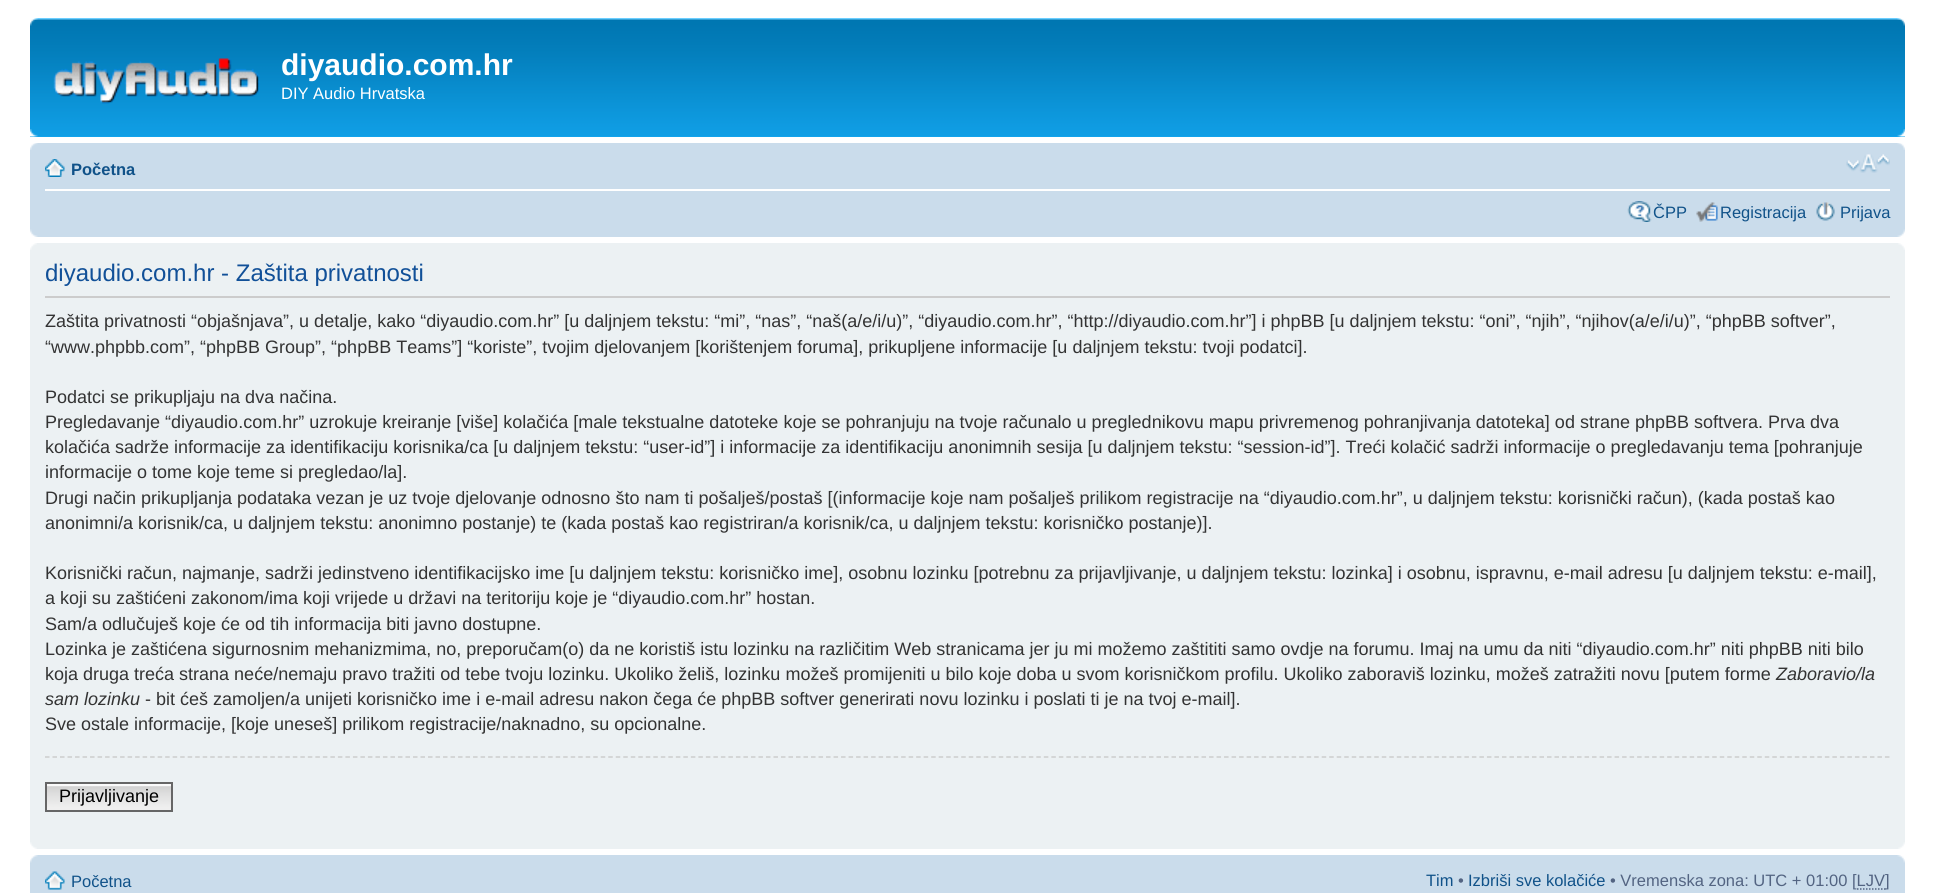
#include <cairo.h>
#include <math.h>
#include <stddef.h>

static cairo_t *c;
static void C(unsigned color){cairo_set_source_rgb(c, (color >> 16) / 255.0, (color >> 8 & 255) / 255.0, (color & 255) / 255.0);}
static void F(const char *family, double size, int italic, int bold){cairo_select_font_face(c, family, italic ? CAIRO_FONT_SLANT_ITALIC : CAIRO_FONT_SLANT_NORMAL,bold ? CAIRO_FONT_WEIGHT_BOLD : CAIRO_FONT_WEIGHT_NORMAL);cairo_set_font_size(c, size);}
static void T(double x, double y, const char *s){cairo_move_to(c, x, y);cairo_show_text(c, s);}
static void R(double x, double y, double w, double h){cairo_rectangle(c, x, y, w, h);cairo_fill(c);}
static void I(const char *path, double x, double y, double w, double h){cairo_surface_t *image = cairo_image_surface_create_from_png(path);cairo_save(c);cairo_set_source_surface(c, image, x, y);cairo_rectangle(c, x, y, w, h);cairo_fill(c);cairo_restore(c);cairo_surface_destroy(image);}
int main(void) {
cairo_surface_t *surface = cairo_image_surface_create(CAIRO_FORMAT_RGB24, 1935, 893);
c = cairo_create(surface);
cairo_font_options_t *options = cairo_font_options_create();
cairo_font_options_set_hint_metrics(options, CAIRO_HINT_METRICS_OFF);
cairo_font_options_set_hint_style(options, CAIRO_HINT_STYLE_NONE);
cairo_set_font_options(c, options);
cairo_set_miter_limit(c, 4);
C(0xffffff);
cairo_paint(c);
C(0x12a3eb);
R(30,136,1875,1);
I("1.png",30,18,1875,118);
I("2.png",30,18,8,8);
I("3.png",1897,18,8,8);
I("4.png",53,58,207,46);
F("Liberation Sans",30,0,1);
C(0xffffff);
T(281,75,"diyaudio.com.hr");
F("Liberation Sans",16.5,0,0);
T(281,99,"DIY Audio Hrvatska");
I("5.png",30,129,8,8);
I("6.png",1897,129,8,8);
C(0xcadceb);
R(30,143,1875,94);
I("7.png",30,143,8,7);
I("8.png",1897,143,8,7);
C(0xffffff);
R(45,189,1845,2);
I("9.png",45,159,20,18);
F("Liberation Sans",16.5,0,1);
C(0x105289);
T(71,175,"Početna");
I("10.png",1846,154,44,19);
I("11.png",1627,201,25,21);
F("Liberation Sans",16.5,0,0);
T(1653,218,"ČPP");
I("12.png",1696,202,22,20);
T(1720,218,"Registracija");
I("13.png",1816,202,19,19);
T(1840,218,"Prijava");
I("14.png",30,229,8,8);
I("15.png",1897,229,8,8);
C(0xecf1f3);
R(30,243,1875,606);
I("16.png",30,243,7,7);
I("17.png",1898,243,7,7);
C(0xcccccc);
R(45,296,1845,2);
F("Liberation Sans",24,0,0);
C(0x115098);
T(45,281,"diyaudio.com.hr - Zaštita privatnosti");
F("Liberation Sans",18,0,0);
C(0x333333);
T(45,327,"Zaštita privatnosti “objašnjava”, u detalje, kako “diyaudio.com.hr” [u daljnjem tekstu: “mi”, “nas”, “naš(a/e/i/u)”, “diyaudio.com.hr”, “http://diyaudio.com.hr”] i phpBB [u daljnjem tekstu: “oni”, “njih”, “njihov(a/e/i/u)”, “phpBB softver”,");
T(45,353,"“www.phpbb.com”, “phpBB Group”, “phpBB Teams”] “koriste”, tvojim djelovanjem [korištenjem foruma], prikupljene informacije [u daljnjem tekstu: tvoji podatci].");
T(45,403,"Podatci se prikupljaju na dva načina.");
T(45,428,"Pregledavanje “diyaudio.com.hr” uzrokuje kreiranje [više] kolačića [male tekstualne datoteke koje se pohranjuju na tvoje računalo u preglednikovu mapu privremenog pohranjivanja datoteka] od strane phpBB softvera. Prva dva");
T(45,453,"kolačića sadrže informacije za identifikaciju korisnika/ca [u daljnjem tekstu: “user-id”] i informacije za identifikaciju anonimnih sesija [u daljnjem tekstu: “session-id”]. Treći kolačić sadrži informacije o pregledavanju tema [pohranjuje");
T(45,478,"informacije o tome koje teme si pregledao/la].");
T(45,504,"Drugi način prikupljanja podataka vezan je uz tvoje djelovanje odnosno što nam ti pošalješ/postaš [(informacije koje nam pošalješ prilikom registracije na “diyaudio.com.hr”, u daljnjem tekstu: korisnički račun), (kada postaš kao");
T(45,529,"anonimni/a korisnik/ca, u daljnjem tekstu: anonimno postanje) te (kada postaš kao registriran/a korisnik/ca, u daljnjem tekstu: korisničko postanje)].");
T(45,579,"Korisnički račun, najmanje, sadrži jedinstveno identifikacijsko ime [u daljnjem tekstu: korisničko ime], osobnu lozinku [potrebnu za prijavljivanje, u daljnjem tekstu: lozinka] i osobnu, ispravnu, e-mail adresu [u daljnjem tekstu: e-mail],");
T(45,604,"a koji su zaštićeni zakonom/ima koji vrijede u državi na teritoriju koje je “diyaudio.com.hr” hostan.");
T(45,630,"Sam/a odlučuješ koje će od tih informacija biti javno dostupne.");
T(45,655,"Lozinka je zaštićena sigurnosnim mehanizmima, no, preporučam(o) da ne koristiš istu lozinku na različitim Web stranicama jer ju mi možemo zaštititi samo ovdje na forumu. Imaj na umu da niti “diyaudio.com.hr” niti phpBB niti bilo");
T(45,680,"koja druga treća strana neće/nemaju pravo tražiti od tebe tvoju lozinku. Ukoliko želiš, lozinku možeš promijeniti u bilo koje doba u svom korisničkom profilu. Ukoliko zaboraviš lozinku, možeš zatražiti novu [putem forme");
F("Liberation Sans",18,1,0);
T(1776,680,"Zaboravio/la");
T(45,705,"sam lozinku");
F("Liberation Sans",18,0,0);
T(145,705,"- bit ćeš zamoljen/a unijeti korisničko ime i e-mail adresu nakon čega će phpBB softver generirati novu lozinku i poslati ti je na tvoj e-mail].");
T(45,730,"Sve ostale informacije, [koje uneseš] prilikom registracije/naknadno, su opcionalne.");
cairo_new_path(c);
cairo_move_to(c,45,757);
cairo_line_to(c,1890,757);
C(0xcccccc);
cairo_set_line_width(c,1.5);
cairo_set_dash(c,(double[]){4.5,3.01},2,0);
cairo_stroke(c);
I("18.png",47,786,124,24);
C(0xfafafa);
R(47,784,124,2);
cairo_rectangle(c,46,783,126,28);
C(0x666666);
cairo_set_line_width(c,2);
cairo_set_dash(c,NULL,0,0);
cairo_stroke(c);
C(0x000000);
T(59,802,"Prijavljivanje");
I("19.png",30,842,7,7);
I("20.png",1898,842,7,7);
C(0xcadceb);
R(30,855,1875,38);
I("21.png",30,855,8,8);
I("22.png",1897,855,8,8);
I("23.png",45,871,20,19);
F("Liberation Sans",16.5,0,0);
C(0x105289);
T(71,887,"Početna");
T(1426,886,"Tim");
C(0x536482);
T(1458,886,"•");
C(0x105289);
T(1468,886,"Izbriši sve kolačiće");
C(0x536482);
T(1610,886,"• Vremenska zona: UTC + 01:00 [LJV");
cairo_new_path(c);
cairo_move_to(c,1857,889);
cairo_line_to(c,1885.5,889);
cairo_set_line_width(c,1.5);
cairo_set_dash(c,(double[]){1.5,1.5},2,0);
cairo_stroke(c);
T(1885,886,"]");
cairo_surface_write_to_png(surface, "o.png");
cairo_font_options_destroy(options);
cairo_destroy(c);
cairo_surface_destroy(surface);
return 0;
}
